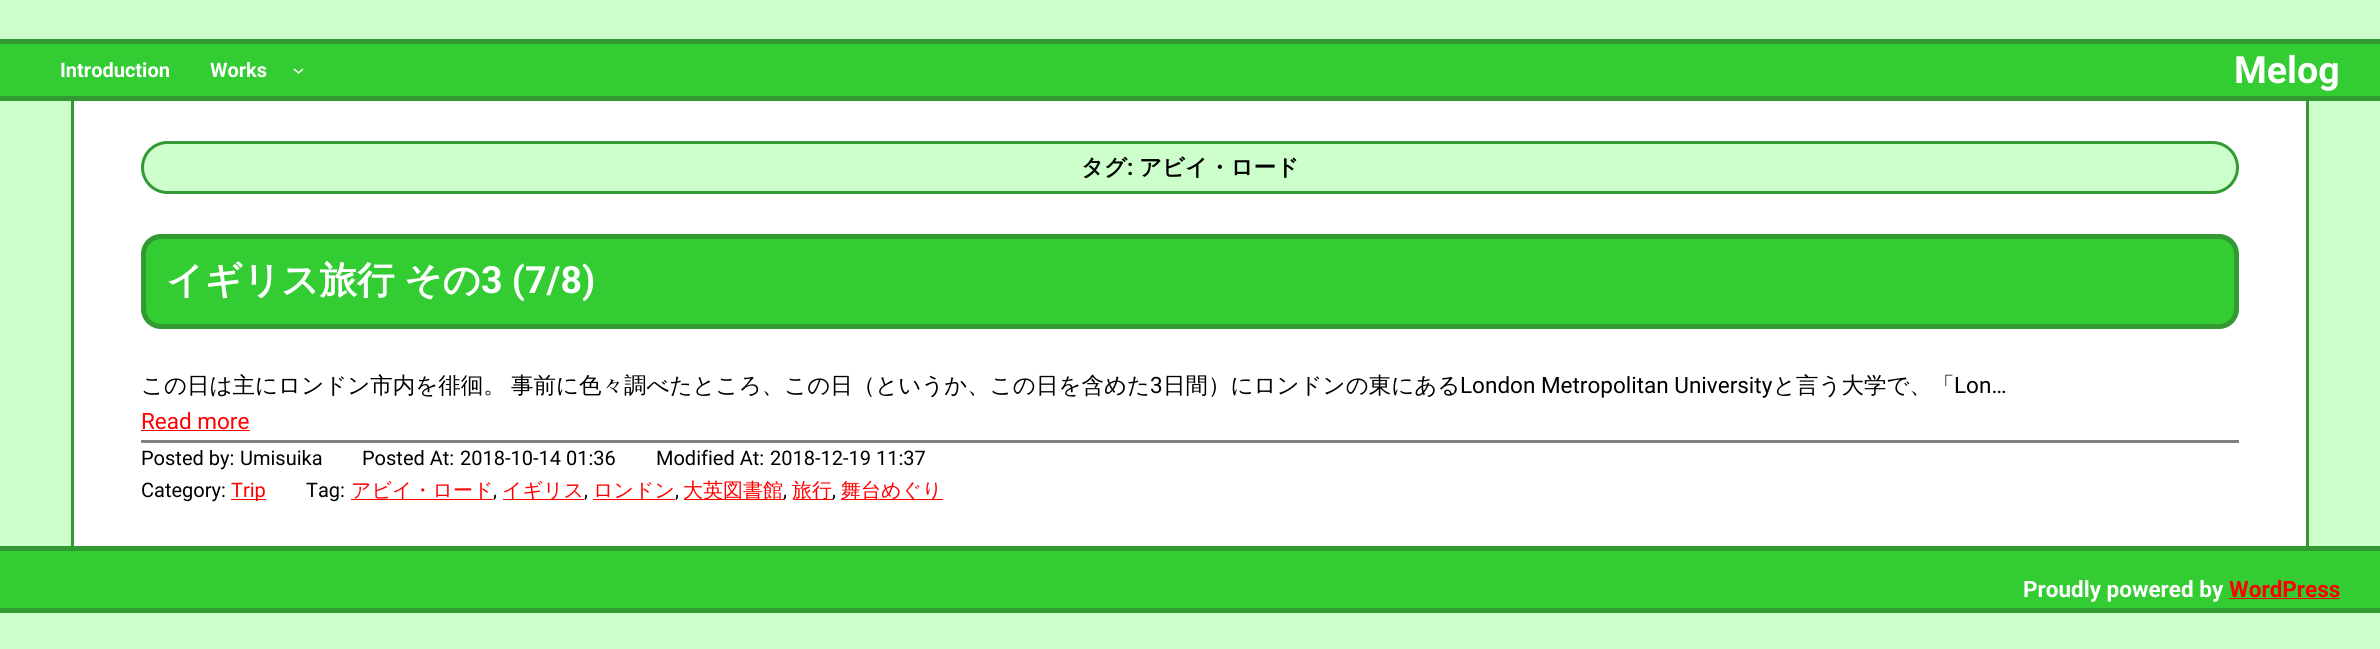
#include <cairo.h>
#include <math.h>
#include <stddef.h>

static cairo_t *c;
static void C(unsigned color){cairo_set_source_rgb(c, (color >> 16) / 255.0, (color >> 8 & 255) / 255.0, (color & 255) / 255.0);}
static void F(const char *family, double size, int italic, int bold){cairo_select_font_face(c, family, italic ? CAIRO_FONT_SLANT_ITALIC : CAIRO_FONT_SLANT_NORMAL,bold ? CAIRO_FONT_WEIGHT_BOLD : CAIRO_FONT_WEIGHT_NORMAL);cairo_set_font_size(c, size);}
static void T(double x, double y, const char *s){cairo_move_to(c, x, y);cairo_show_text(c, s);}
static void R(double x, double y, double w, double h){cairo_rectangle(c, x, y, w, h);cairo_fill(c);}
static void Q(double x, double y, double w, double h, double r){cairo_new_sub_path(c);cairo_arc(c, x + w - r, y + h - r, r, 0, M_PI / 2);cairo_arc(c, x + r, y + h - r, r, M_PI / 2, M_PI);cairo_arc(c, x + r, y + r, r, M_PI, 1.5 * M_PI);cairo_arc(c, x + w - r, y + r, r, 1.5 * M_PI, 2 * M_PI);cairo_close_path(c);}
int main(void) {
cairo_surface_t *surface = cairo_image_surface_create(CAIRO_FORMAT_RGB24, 2380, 649);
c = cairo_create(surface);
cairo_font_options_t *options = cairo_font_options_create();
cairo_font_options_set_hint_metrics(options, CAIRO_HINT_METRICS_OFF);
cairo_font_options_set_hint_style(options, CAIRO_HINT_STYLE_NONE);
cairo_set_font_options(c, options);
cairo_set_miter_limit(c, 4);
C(0xccffcc);
cairo_paint(c);
C(0x33cc33);
R(0,44,2380,52);
C(0x339933);
R(0,39,2380,5);
R(0,96,2380,5);
F("Roboto",20,0,1);
C(0xffffff);
T(60,77,"Introduction");
T(210,77,"Works");
cairo_new_path(c);
cairo_move_to(c,294,69);
cairo_line_to(c,298.5,73);
cairo_line_to(c,303,69);
cairo_set_line_width(c,1.5);
cairo_stroke(c);
F("Roboto",37.5,0,1);
T(2234,83,"Melog");
R(74,101,2232,445);
C(0x339933);
R(2306,101,3,445);
R(71,101,3,445);
C(0xccffcc);
Q(142.5,142.5,2095,50,25);
cairo_fill_preserve(c);
C(0x339933);
cairo_set_line_width(c,3);
cairo_stroke(c);
F("WenQuanYi Zen Hei",22.5,0,1);
C(0x000000);
T(1081,175,"タグ");
F("Roboto",22.5,0,1);
T(1127,175,":");
F("WenQuanYi Zen Hei",22.5,0,1);
T(1139,175,"アビイ・ロード");
C(0x33cc33);
Q(143.5,236.5,2093,90,17.5);
cairo_fill_preserve(c);
C(0x339933);
cairo_set_line_width(c,5);
cairo_stroke(c);
F("WenQuanYi Zen Hei",37.5,0,1);
C(0xffffff);
T(166,293,"イギリス旅行");
T(404,293,"その");
F("Roboto",37.5,0,1);
T(481,293,"3 (7/8)");
F("WenQuanYi Zen Hei Medium",22.5,0,0);
C(0x000000);
T(141,393,"この日は主にロンドン市内を徘徊。");
T(511,393,"事前に色々調べたところ、この日（というか、この日を含めた");
F("Roboto",22.5,0,0);
T(1150,393,"3");
F("WenQuanYi Zen Hei Medium",22.5,0,0);
T(1163,393,"日間）にロンドンの東にある");
F("Roboto",22.5,0,0);
T(1460,393,"London Metropolitan University");
F("WenQuanYi Zen Hei Medium",22.5,0,0);
T(1773,393,"と言う大学で、「");
F("Roboto",22.5,0,0);
T(1954,393,"Lon…");
C(0xff0000);
T(141,429,"Read more");
R(141,430,109,1);
C(0x808080);
R(141,440,2098,3);
F("Roboto",20,0,0);
C(0x000000);
T(141,465,"Posted by:");
T(240,465,"Umisuika");
T(362,465,"Posted At:");
T(460,465,"2018-10-14 01:36");
T(656,465,"Modified At:");
T(770,465,"2018-12-19 11:37");
T(141,497,"Category:");
C(0xff0000);
R(231,499,35,1);
T(231,497,"Trip");
C(0x000000);
T(306,497,"Tag:");
C(0xff0000);
R(351,499,142,1);
F("WenQuanYi Zen Hei Medium",20,0,0);
T(351,497,"アビイ・ロード");
F("Roboto",20,0,0);
C(0x000000);
T(493,497,",");
C(0xff0000);
R(503,499,81,1);
F("WenQuanYi Zen Hei Medium",20,0,0);
T(502,497,"イギリス");
F("Roboto",20,0,0);
C(0x000000);
T(584,497,",");
C(0xff0000);
R(593,499,82,1);
F("WenQuanYi Zen Hei Medium",20,0,0);
T(593,497,"ロンドン");
F("Roboto",20,0,0);
C(0x000000);
T(675,497,",");
C(0xff0000);
R(684,499,100,1);
F("WenQuanYi Zen Hei Medium",20,0,0);
T(683,497,"大英図書館");
F("Roboto",20,0,0);
C(0x000000);
T(783,497,",");
C(0xff0000);
R(793,499,40,1);
F("WenQuanYi Zen Hei Medium",20,0,0);
T(792,497,"旅行");
F("Roboto",20,0,0);
C(0x000000);
T(832,497,",");
C(0xff0000);
R(841,499,102,1);
F("WenQuanYi Zen Hei Medium",20,0,0);
T(841,497,"舞台めぐり");
C(0x33cc33);
R(0,551,2380,57);
C(0x339933);
R(0,546,2380,5);
R(0,608,2380,5);
F("Roboto",22.5,0,1);
C(0xffffff);
T(2023,597,"Proudly powered by");
C(0xff0000);
T(2229,597,"WordPress");
R(2229,598,111,1);
cairo_surface_write_to_png(surface, "o.png");
cairo_font_options_destroy(options);
cairo_destroy(c);
cairo_surface_destroy(surface);
return 0;
}
